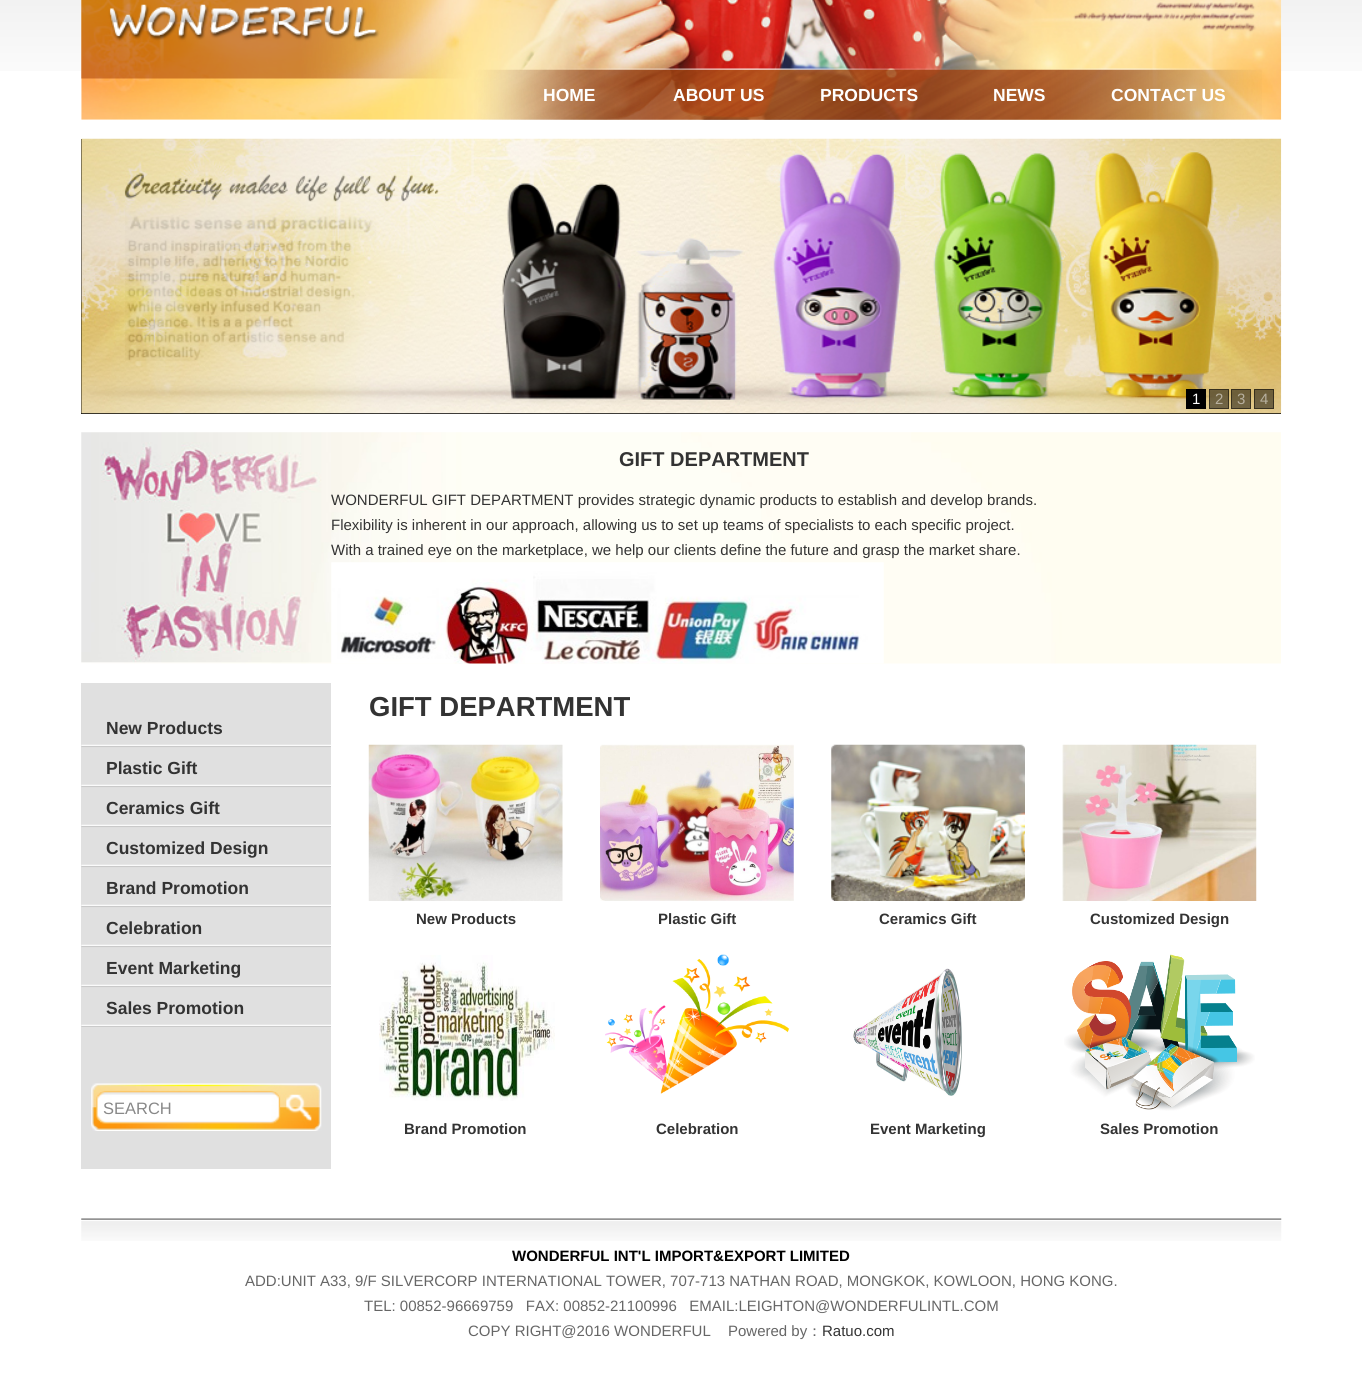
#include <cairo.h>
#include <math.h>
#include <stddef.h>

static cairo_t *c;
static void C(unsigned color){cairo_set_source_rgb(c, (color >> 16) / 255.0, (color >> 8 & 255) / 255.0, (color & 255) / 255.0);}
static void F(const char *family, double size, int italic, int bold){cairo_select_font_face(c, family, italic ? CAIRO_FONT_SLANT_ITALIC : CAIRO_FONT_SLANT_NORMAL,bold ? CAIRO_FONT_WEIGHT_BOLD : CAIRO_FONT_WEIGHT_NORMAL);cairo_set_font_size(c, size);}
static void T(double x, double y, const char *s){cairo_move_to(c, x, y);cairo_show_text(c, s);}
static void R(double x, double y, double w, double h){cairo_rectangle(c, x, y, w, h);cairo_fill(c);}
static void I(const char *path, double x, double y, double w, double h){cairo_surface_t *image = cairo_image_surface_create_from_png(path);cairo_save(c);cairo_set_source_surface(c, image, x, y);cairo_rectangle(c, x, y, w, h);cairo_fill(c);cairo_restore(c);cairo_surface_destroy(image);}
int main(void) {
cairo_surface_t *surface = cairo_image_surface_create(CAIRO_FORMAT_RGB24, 1362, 1387);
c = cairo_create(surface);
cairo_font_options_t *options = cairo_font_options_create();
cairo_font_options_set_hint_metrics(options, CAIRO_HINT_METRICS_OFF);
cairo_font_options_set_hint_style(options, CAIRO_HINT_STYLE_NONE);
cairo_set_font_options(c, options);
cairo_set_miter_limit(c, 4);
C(0xffffff);
cairo_paint(c);
I("1.png",0,0,1362,71);
C(0xffffff);
R(81,0,1200,71);
I("2.png",81,0,1201,120);
I("3.png",81,0,1181,120);
F("Liberation Sans",17.5,0,1);
T(543,101,"HOME");
T(673,101,"ABOUT US");
T(820,101,"PRODUCTS");
T(993,101,"NEWS");
T(1111,101,"CONTACT US");
C(0x000000);
R(81,139,1200,275);
I("4.png",81,138,1201,276);
R(1186,389,20,20);
F("Liberation Sans",15,0,0);
C(0xffffff);
T(1192,404,"1");
cairo_set_source_rgba(c,0,0,0,0.5);
R(1209,389,20,20);
cairo_rectangle(c,1209.5,389.5,19,19);
cairo_set_line_width(c,1);
cairo_stroke(c);
C(0xb7b09f);
T(1215,404,"2");
cairo_set_source_rgba(c,0,0,0,0.5);
R(1231,389,20,20);
cairo_rectangle(c,1231.5,389.5,19,19);
cairo_stroke(c);
C(0xb7b09f);
T(1237,404,"3");
cairo_set_source_rgba(c,0,0,0,0.5);
R(1254,389,20,20);
cairo_rectangle(c,1254.5,389.5,19,19);
cairo_stroke(c);
C(0xb7b09f);
T(1260,404,"4");
I("5.png",81,432,1200,232);
F("Liberation Sans",20,0,1);
C(0x333333);
T(619,466,"GIFT DEPARTMENT");
F("Liberation Sans",15,0,0);
T(331,505,"WONDERFUL GIFT DEPARTMENT provides strategic dynamic products to establish and develop brands.");
T(331,530,"Flexibility is inherent in our approach, allowing us to set up teams of specialists to each specific project.");
T(331,555,"With a trained eye on the marketplace, we help our clients define the future and grasp the market share.");
I("6.png",331,562,553,102);
C(0xe0e0e0);
R(81,683,250,486);
I("7.png",81,744,250,4);
F("Liberation Sans",17.5,0,1);
C(0x333333);
T(106,734,"New Products");
I("8.png",81,747,250,41);
T(106,774,"Plastic Gift");
I("8.png",81,787,250,41);
T(106,814,"Ceramics Gift");
I("8.png",81,827,250,41);
T(106,854,"Customized Design");
I("8.png",81,867,250,41);
T(106,894,"Brand Promotion");
I("8.png",81,907,250,41);
T(106,934,"Celebration");
I("8.png",81,947,250,41);
T(106,974,"Event Marketing");
I("9.png",81,987,250,40);
T(106,1014,"Sales Promotion");
I("10.png",91,1083,231,48);
F("Liberation Sans",16.5,0,0);
C(0x888888);
T(103,1114,"SEARCH");
F("Liberation Sans",27.5,0,1);
C(0x333333);
T(369,716,"GIFT DEPARTMENT");
I("11.png",368,744,195,157);
F("Liberation Sans",15,0,1);
T(416,924,"New Products");
I("12.png",600,744,194,157);
T(658,924,"Plastic Gift");
I("13.png",831,744,194,157);
T(879,924,"Ceramics Gift");
I("14.png",1062,744,195,157);
T(1090,924,"Customized Design");
I("15.png",379,955,176,146);
T(404,1134,"Brand Promotion");
I("16.png",605,954,185,140);
T(656,1134,"Celebration");
I("17.png",853,968,109,128);
T(870,1134,"Event Marketing");
I("18.png",1064,954,191,157);
T(1100,1134,"Sales Promotion");
I("19.png",81,1218,1201,23);
C(0x000000);
T(512,1261,"WONDERFUL INT'L IMPORT&EXPORT LIMITED");
F("Liberation Sans",15,0,0);
C(0x666666);
T(245,1286,"ADD:UNIT A33, 9/F SILVERCORP INTERNATIONAL TOWER, 707-713 NATHAN ROAD, MONGKOK, KOWLOON, HONG KONG.");
T(364,1311,"TEL: 00852-96669759   FAX: 00852-21100996   EMAIL:LEIGHTON@WONDERFULINTL.COM");
T(468,1336,"COPY RIGHT@2016 WONDERFUL");
T(728,1336,"Powered by");
F("WenQuanYi Zen Hei Medium",15,0,0);
T(807,1336,"：");
F("Liberation Sans",15,0,0);
C(0x333333);
T(822,1336,"Ratuo.com");
cairo_surface_write_to_png(surface, "o.png");
cairo_font_options_destroy(options);
cairo_destroy(c);
cairo_surface_destroy(surface);
return 0;
}
